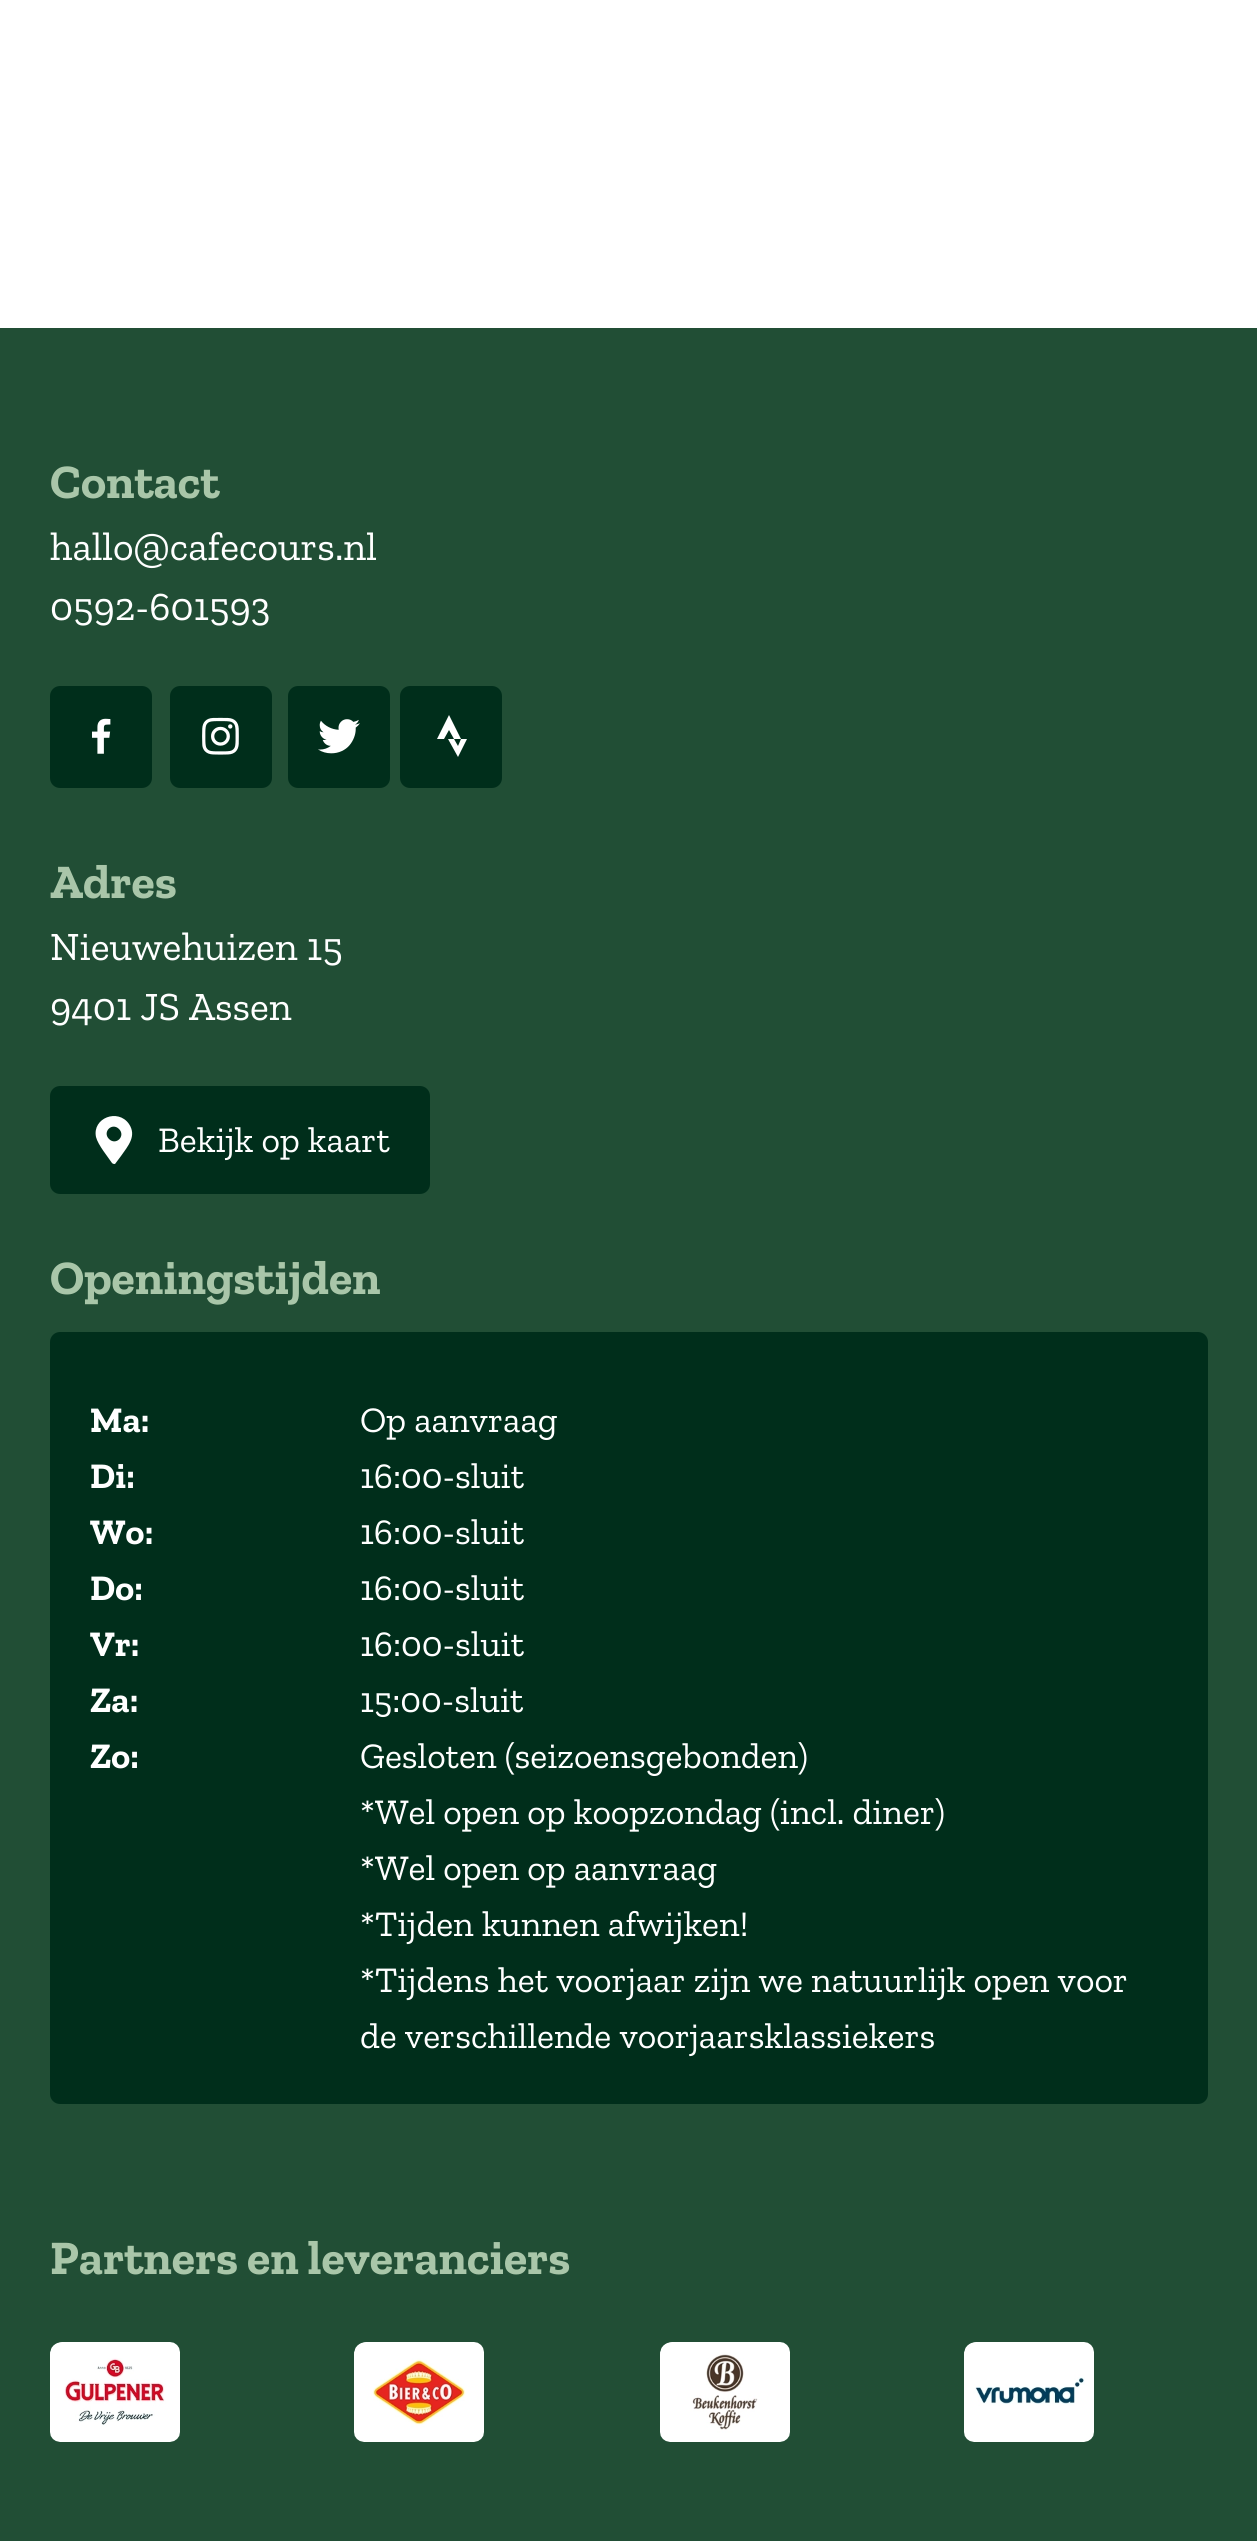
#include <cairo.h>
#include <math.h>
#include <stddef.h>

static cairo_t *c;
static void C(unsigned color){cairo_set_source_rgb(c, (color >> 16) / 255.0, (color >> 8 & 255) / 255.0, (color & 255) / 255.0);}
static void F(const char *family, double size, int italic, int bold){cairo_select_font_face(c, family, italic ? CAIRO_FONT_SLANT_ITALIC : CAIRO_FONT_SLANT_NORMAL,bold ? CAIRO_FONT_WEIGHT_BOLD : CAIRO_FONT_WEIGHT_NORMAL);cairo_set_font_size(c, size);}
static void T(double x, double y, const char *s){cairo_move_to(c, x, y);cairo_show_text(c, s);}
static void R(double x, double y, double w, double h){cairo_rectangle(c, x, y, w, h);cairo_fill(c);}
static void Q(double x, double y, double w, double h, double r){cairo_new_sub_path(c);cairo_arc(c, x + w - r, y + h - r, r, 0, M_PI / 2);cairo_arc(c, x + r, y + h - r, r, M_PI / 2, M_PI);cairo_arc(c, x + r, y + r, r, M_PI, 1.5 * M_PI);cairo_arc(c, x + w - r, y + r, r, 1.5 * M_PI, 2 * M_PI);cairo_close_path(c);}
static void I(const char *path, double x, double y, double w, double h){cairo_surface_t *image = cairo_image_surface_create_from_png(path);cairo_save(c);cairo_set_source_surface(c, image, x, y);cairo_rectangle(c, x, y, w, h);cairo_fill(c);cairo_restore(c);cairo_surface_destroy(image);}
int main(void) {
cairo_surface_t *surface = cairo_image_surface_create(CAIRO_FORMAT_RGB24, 1257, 2541);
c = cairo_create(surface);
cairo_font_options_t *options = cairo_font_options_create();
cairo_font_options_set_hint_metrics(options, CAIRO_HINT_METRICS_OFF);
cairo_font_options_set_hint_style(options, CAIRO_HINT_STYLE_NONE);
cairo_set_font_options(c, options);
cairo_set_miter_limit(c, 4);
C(0xffffff);
cairo_paint(c);
C(0x214e35);
R(0,328,1257,2213);
F("Zilla Slab",48,0,1);
C(0xa9c6a9);
T(50,498,"Contact");
F("Zilla Slab",40,0,0);
C(0xffffff);
T(50,560,"hallo@cafecours.nl");
T(50,620,"0592-601593");
C(0x002e1b);
Q(50,686,102,102,10);
cairo_fill(c);
I("1.png",92,718,19,36);
Q(170,686,102,102,10);
cairo_fill(c);
I("2.png",202,717,37,38);
Q(288,686,102,102,10);
cairo_fill(c);
I("3.png",318,719,42,35);
Q(400,686,102,102,10);
cairo_fill(c);
C(0xffffff);
cairo_new_path(c);
cairo_move_to(c,449,715);
cairo_line_to(c,461,739);
cairo_line_to(c,454,739);
cairo_line_to(c,449,730);
cairo_line_to(c,444,739);
cairo_line_to(c,437,739);
cairo_close_path(c);
cairo_move_to(c,461,739);
cairo_line_to(c,467,739);
cairo_line_to(c,458,757);
cairo_line_to(c,448,739);
cairo_line_to(c,454,739);
cairo_line_to(c,458,746);
cairo_close_path(c);
cairo_fill(c);
F("Zilla Slab",48,0,1);
C(0xa9c6a9);
T(50,898,"Adres");
F("Zilla Slab",40,0,0);
C(0xffffff);
T(50,960,"Nieuwehuizen 15");
T(50,1020,"9401 JS Assen");
C(0x002e1b);
Q(50,1086,380,108,10);
cairo_fill(c);
C(0xffffff);
cairo_new_path(c);
cairo_move_to(c,112,1163);
cairo_curve_to(c,108,1157,98,1145,96,1137);
cairo_curve_to(c,92,1118,118,1108,129,1124);
cairo_curve_to(c,137,1136,128,1146,121,1156);
cairo_line_to(c,115,1164);
cairo_curve_to(c,114,1164,113,1164,112,1163);
cairo_close_path(c);
cairo_move_to(c,109,1139);
cairo_curve_to(c,116,1146,126,1136,119,1129);
cairo_curve_to(c,112,1122,102,1132,109,1139);
cairo_close_path(c);
cairo_fill(c);
F("Zilla Slab",36,0,0);
T(158,1152,"Bekijk op kaart");
F("Zilla Slab",48,0,1);
C(0xa9c6a9);
T(50,1294,"Openingstijden");
C(0x002e1b);
Q(50,1332,1158,772,10);
cairo_fill(c);
F("Zilla Slab",36,0,1);
C(0xffffff);
T(90,1432,"Ma:");
T(90,1488,"Di:");
T(90,1544,"Wo:");
T(90,1600,"Do:");
T(90,1656,"Vr:");
T(90,1712,"Za:");
T(90,1768,"Zo:");
F("Zilla Slab",36,0,0);
T(360,1432,"Op aanvraag");
T(360,1488,"16:00-sluit");
T(360,1544,"16:00-sluit");
T(360,1600,"16:00-sluit");
T(360,1656,"16:00-sluit");
T(360,1712,"15:00-sluit");
T(360,1768,"Gesloten (seizoensgebonden)");
T(360,1824,"*Wel open op koopzondag (incl. diner)");
T(360,1880,"*Wel open op aanvraag");
T(360,1936,"*Tijden kunnen afwijken!");
T(360,1992,"*Tijdens het voorjaar zijn we natuurlijk open voor");
T(360,2048,"de verschillende voorjaarsklassiekers");
F("Zilla Slab",48,0,1);
C(0xa9c6a9);
T(50,2274,"Partners en leveranciers");
I("4.png",50,2342,130,100);
I("5.png",354,2342,130,100);
I("6.png",660,2342,130,100);
I("7.png",964,2342,130,100);
cairo_surface_write_to_png(surface, "o.png");
cairo_font_options_destroy(options);
cairo_destroy(c);
cairo_surface_destroy(surface);
return 0;
}
